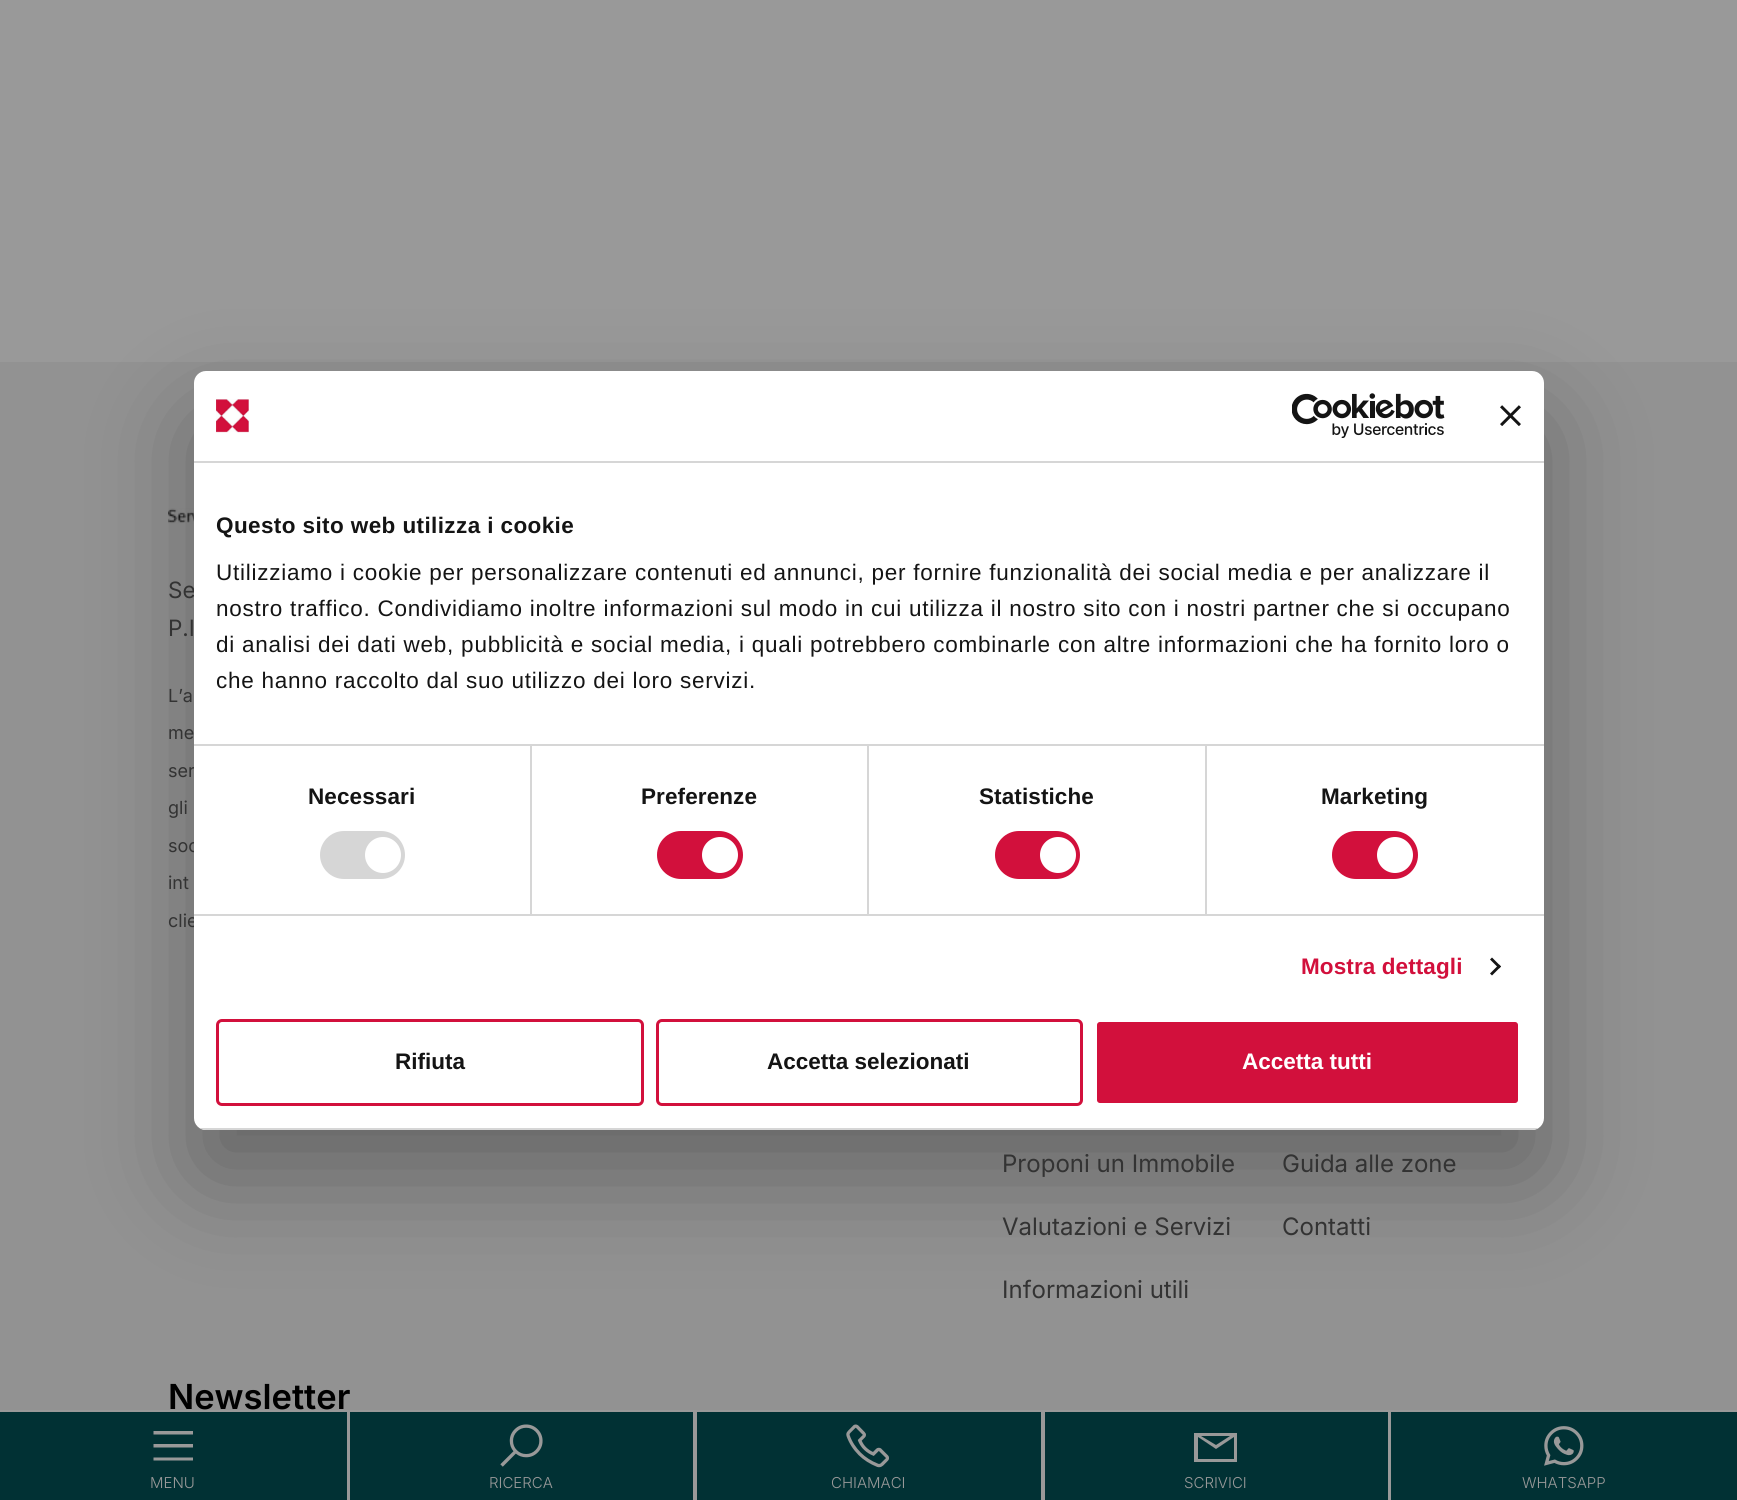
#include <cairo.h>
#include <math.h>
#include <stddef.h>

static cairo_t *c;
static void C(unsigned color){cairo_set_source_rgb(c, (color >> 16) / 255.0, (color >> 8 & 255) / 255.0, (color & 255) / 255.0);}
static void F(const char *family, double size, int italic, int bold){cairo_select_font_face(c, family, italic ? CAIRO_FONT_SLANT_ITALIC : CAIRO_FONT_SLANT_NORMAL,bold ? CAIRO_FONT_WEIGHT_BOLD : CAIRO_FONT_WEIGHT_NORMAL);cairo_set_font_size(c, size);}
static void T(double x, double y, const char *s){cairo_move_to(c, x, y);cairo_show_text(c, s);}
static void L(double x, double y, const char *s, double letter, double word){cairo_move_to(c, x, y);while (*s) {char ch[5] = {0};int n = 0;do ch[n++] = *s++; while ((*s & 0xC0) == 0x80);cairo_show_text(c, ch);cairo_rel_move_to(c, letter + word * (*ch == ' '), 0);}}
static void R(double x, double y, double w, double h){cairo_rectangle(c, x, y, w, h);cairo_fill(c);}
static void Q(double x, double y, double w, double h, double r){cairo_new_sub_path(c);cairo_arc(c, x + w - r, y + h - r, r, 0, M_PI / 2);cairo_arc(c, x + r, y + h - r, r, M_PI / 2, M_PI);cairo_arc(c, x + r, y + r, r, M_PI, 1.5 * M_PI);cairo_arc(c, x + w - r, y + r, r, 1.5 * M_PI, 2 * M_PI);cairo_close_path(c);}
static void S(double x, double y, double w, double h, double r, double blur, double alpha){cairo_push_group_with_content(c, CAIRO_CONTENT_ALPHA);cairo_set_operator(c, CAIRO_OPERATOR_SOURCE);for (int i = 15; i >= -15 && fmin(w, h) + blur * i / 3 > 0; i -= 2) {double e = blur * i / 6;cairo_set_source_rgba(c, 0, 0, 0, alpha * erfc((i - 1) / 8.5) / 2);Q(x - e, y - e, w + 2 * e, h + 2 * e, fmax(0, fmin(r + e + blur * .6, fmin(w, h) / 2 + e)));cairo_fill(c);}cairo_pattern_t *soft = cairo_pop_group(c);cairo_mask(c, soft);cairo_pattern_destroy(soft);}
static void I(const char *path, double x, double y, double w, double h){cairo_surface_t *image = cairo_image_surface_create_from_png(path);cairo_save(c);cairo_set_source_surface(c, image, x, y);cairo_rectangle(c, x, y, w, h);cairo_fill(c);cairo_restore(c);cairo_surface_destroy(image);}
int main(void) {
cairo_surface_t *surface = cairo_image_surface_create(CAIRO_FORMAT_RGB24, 1737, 1500);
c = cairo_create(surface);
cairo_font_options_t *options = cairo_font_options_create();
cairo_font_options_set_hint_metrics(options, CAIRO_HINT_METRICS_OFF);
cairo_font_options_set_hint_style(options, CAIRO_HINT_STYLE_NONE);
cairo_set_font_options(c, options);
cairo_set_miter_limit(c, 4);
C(0x999999);
cairo_paint(c);
C(0x929292);
R(0,362,1737,1048);
I("4.png",168,508,26,16);
C(0x000000);
S(194,419,1350,759,12,51,.3);
F("Inter",22.5,0,0);
C(0x333333);
T(168,598,"Se");
F("Inter",18,0,0);
T(168,777,"ser");
T(168,852,"soc");
T(168,927,"clie");
C(0xffffff);
Q(194,371,1350,759,12);
cairo_fill(c);
C(0xd6d6d6);
R(194,461,1350,2);
I("1.png",216,399,33,34);
I("2.png",1292,393,153,45);
I("3.png",1500,405,21,21);
R(194,744,1350,2);
F("Liberation Sans",22.5,0,1);
C(0x141414);
L(216,533,"Questo sito web utilizza i cookie",.4,0);
F("Liberation Sans",22.5,0,0);
L(216,580,"Utilizziamo i cookie per personalizzare contenuti ed annunci, per fornire funzionalità dei social media e per analizzare il",.75,0);
L(216,616,"nostro traffico. Condividiamo inoltre informazioni sul modo in cui utilizza il nostro sito con i nostri partner che si occupano",.75,0);
L(216,652,"di analisi dei dati web, pubblicità e social media, i quali potrebbero combinarle con altre informazioni che ha fornito loro o",.75,0);
L(216,688,"che hanno raccolto dal suo utilizzo dei loro servizi.",.75,0);
C(0xd6d6d6);
R(194,914,1350,2);
R(530,746,2,168);
F("Liberation Sans",22.5,0,1);
C(0x141414);
L(308,804,"Necessari",.1,0);
C(0xd6d6d6);
Q(320,831,85,48,24);
cairo_fill(c);
C(0xffffff);
cairo_arc(c,383,855,18,0,2 * M_PI);
cairo_fill(c);
C(0xd6d6d6);
R(867,746,2,168);
C(0x141414);
L(641,804,"Preferenze",.1,0);
C(0xd2103c);
Q(657,831,86,48,24);
cairo_fill(c);
C(0xffffff);
cairo_arc(c,720,855,18,0,2 * M_PI);
cairo_fill(c);
C(0xd6d6d6);
R(1205,746,2,168);
C(0x141414);
L(979,804,"Statistiche",.1,0);
C(0xd2103c);
Q(995,831,85,48,24);
cairo_fill(c);
C(0xffffff);
cairo_arc(c,1058,855,18,0,2 * M_PI);
cairo_fill(c);
C(0x141414);
L(1321,804,"Marketing",.1,0);
C(0xd2103c);
Q(1332,831,86,48,24);
cairo_fill(c);
C(0xffffff);
cairo_arc(c,1395,855,18,0,2 * M_PI);
cairo_fill(c);
C(0xd2103c);
L(1301,974,"Mostra dettagli",.1,0);
C(0x141414);
cairo_new_path(c);
cairo_move_to(c,1492,957.5);
cairo_line_to(c,1501,966.5);
cairo_line_to(c,1499,968.5);
cairo_line_to(c,1490,959.5);
cairo_close_path(c);
cairo_fill(c);
cairo_new_path(c);
cairo_move_to(c,1499,964.5);
cairo_line_to(c,1501,966.5);
cairo_line_to(c,1492,975.5);
cairo_line_to(c,1490,973.5);
cairo_close_path(c);
cairo_fill(c);
cairo_save(c);
Q(194,371,1350,759,12);
cairo_clip(c);
C(0xd6d6d6);
R(194,1128,1350,2);
cairo_restore(c);
Q(217.5,1020.5,425,84,4.5);
C(0xd2103c);
cairo_set_line_width(c,3);
cairo_stroke(c);
C(0x141414);
T(395,1069,"Rifiuta");
Q(657.5,1020.5,424,84,4.5);
C(0xd2103c);
cairo_stroke(c);
C(0x141414);
T(767,1069,"Accetta selezionati");
C(0xd2103c);
Q(1095.5,1020.5,424,84,4.5);
cairo_fill_preserve(c);
C(0xffffff);
cairo_stroke(c);
T(1242,1069,"Accetta tutti");
F("Inter",22.5,0,0);
C(0x333333);
T(168,636,"P.I");
F("Inter",18,0,0);
T(168,702,"L’a");
T(168,739,"me");
T(168,814,"gli");
T(168,889,"int");
F("Inter",24,0,0);
T(1002,1172,"Proponi un Immobile");
T(1282,1172,"Guida alle zone");
T(1002,1235,"Valutazioni e Servizi");
T(1282,1235,"Contatti");
T(1002,1298,"Informazioni utili");
F("Inter SemiBold",34.5,0,0);
C(0x000000);
T(168,1409,"Newsletter");
C(0x013134);
R(0,1412,347,88);
C(0x999999);
cairo_new_path(c);
cairo_move_to(c,153.5,1431);
cairo_line_to(c,193,1431);
cairo_line_to(c,193,1434.5);
cairo_line_to(c,153.5,1434.5);
cairo_close_path(c);
cairo_move_to(c,153.5,1444);
cairo_line_to(c,193,1444);
cairo_line_to(c,193,1447.5);
cairo_line_to(c,153.5,1447.5);
cairo_close_path(c);
cairo_move_to(c,153.5,1457.5);
cairo_line_to(c,193,1457.5);
cairo_line_to(c,193,1460.5);
cairo_line_to(c,153.5,1460.5);
cairo_close_path(c);
cairo_fill(c);
F("Inter Light",15,0,0);
T(150,1488,"MENU");
C(0x013134);
R(350,1412,343,88);
I("5.png",500,1424,43,43);
C(0x999999);
T(489,1488,"RICERCA");
C(0x013134);
R(697,1412,344,88);
I("6.png",846,1424,43,44);
C(0x999999);
T(831,1488,"CHIAMACI");
C(0x013134);
R(1045,1412,343,88);
C(0x999999);
cairo_new_path(c);
cairo_move_to(c,1194,1433);
cairo_line_to(c,1237,1433);
cairo_line_to(c,1237,1462);
cairo_line_to(c,1194,1462);
cairo_close_path(c);
cairo_move_to(c,1201,1436);
cairo_line_to(c,1216,1445);
cairo_line_to(c,1230,1436);
cairo_close_path(c);
cairo_move_to(c,1198,1437);
cairo_line_to(c,1198,1459);
cairo_line_to(c,1234,1459);
cairo_line_to(c,1234,1437);
cairo_line_to(c,1216,1449);
cairo_close_path(c);
cairo_fill(c);
T(1184,1488,"SCRIVICI");
C(0x013134);
R(1391,1412,346,88);
I("7.png",1544,1426,40,40);
C(0x999999);
T(1522,1488,"WHATSAPP");
cairo_surface_write_to_png(surface, "o.png");
cairo_font_options_destroy(options);
cairo_destroy(c);
cairo_surface_destroy(surface);
return 0;
}
